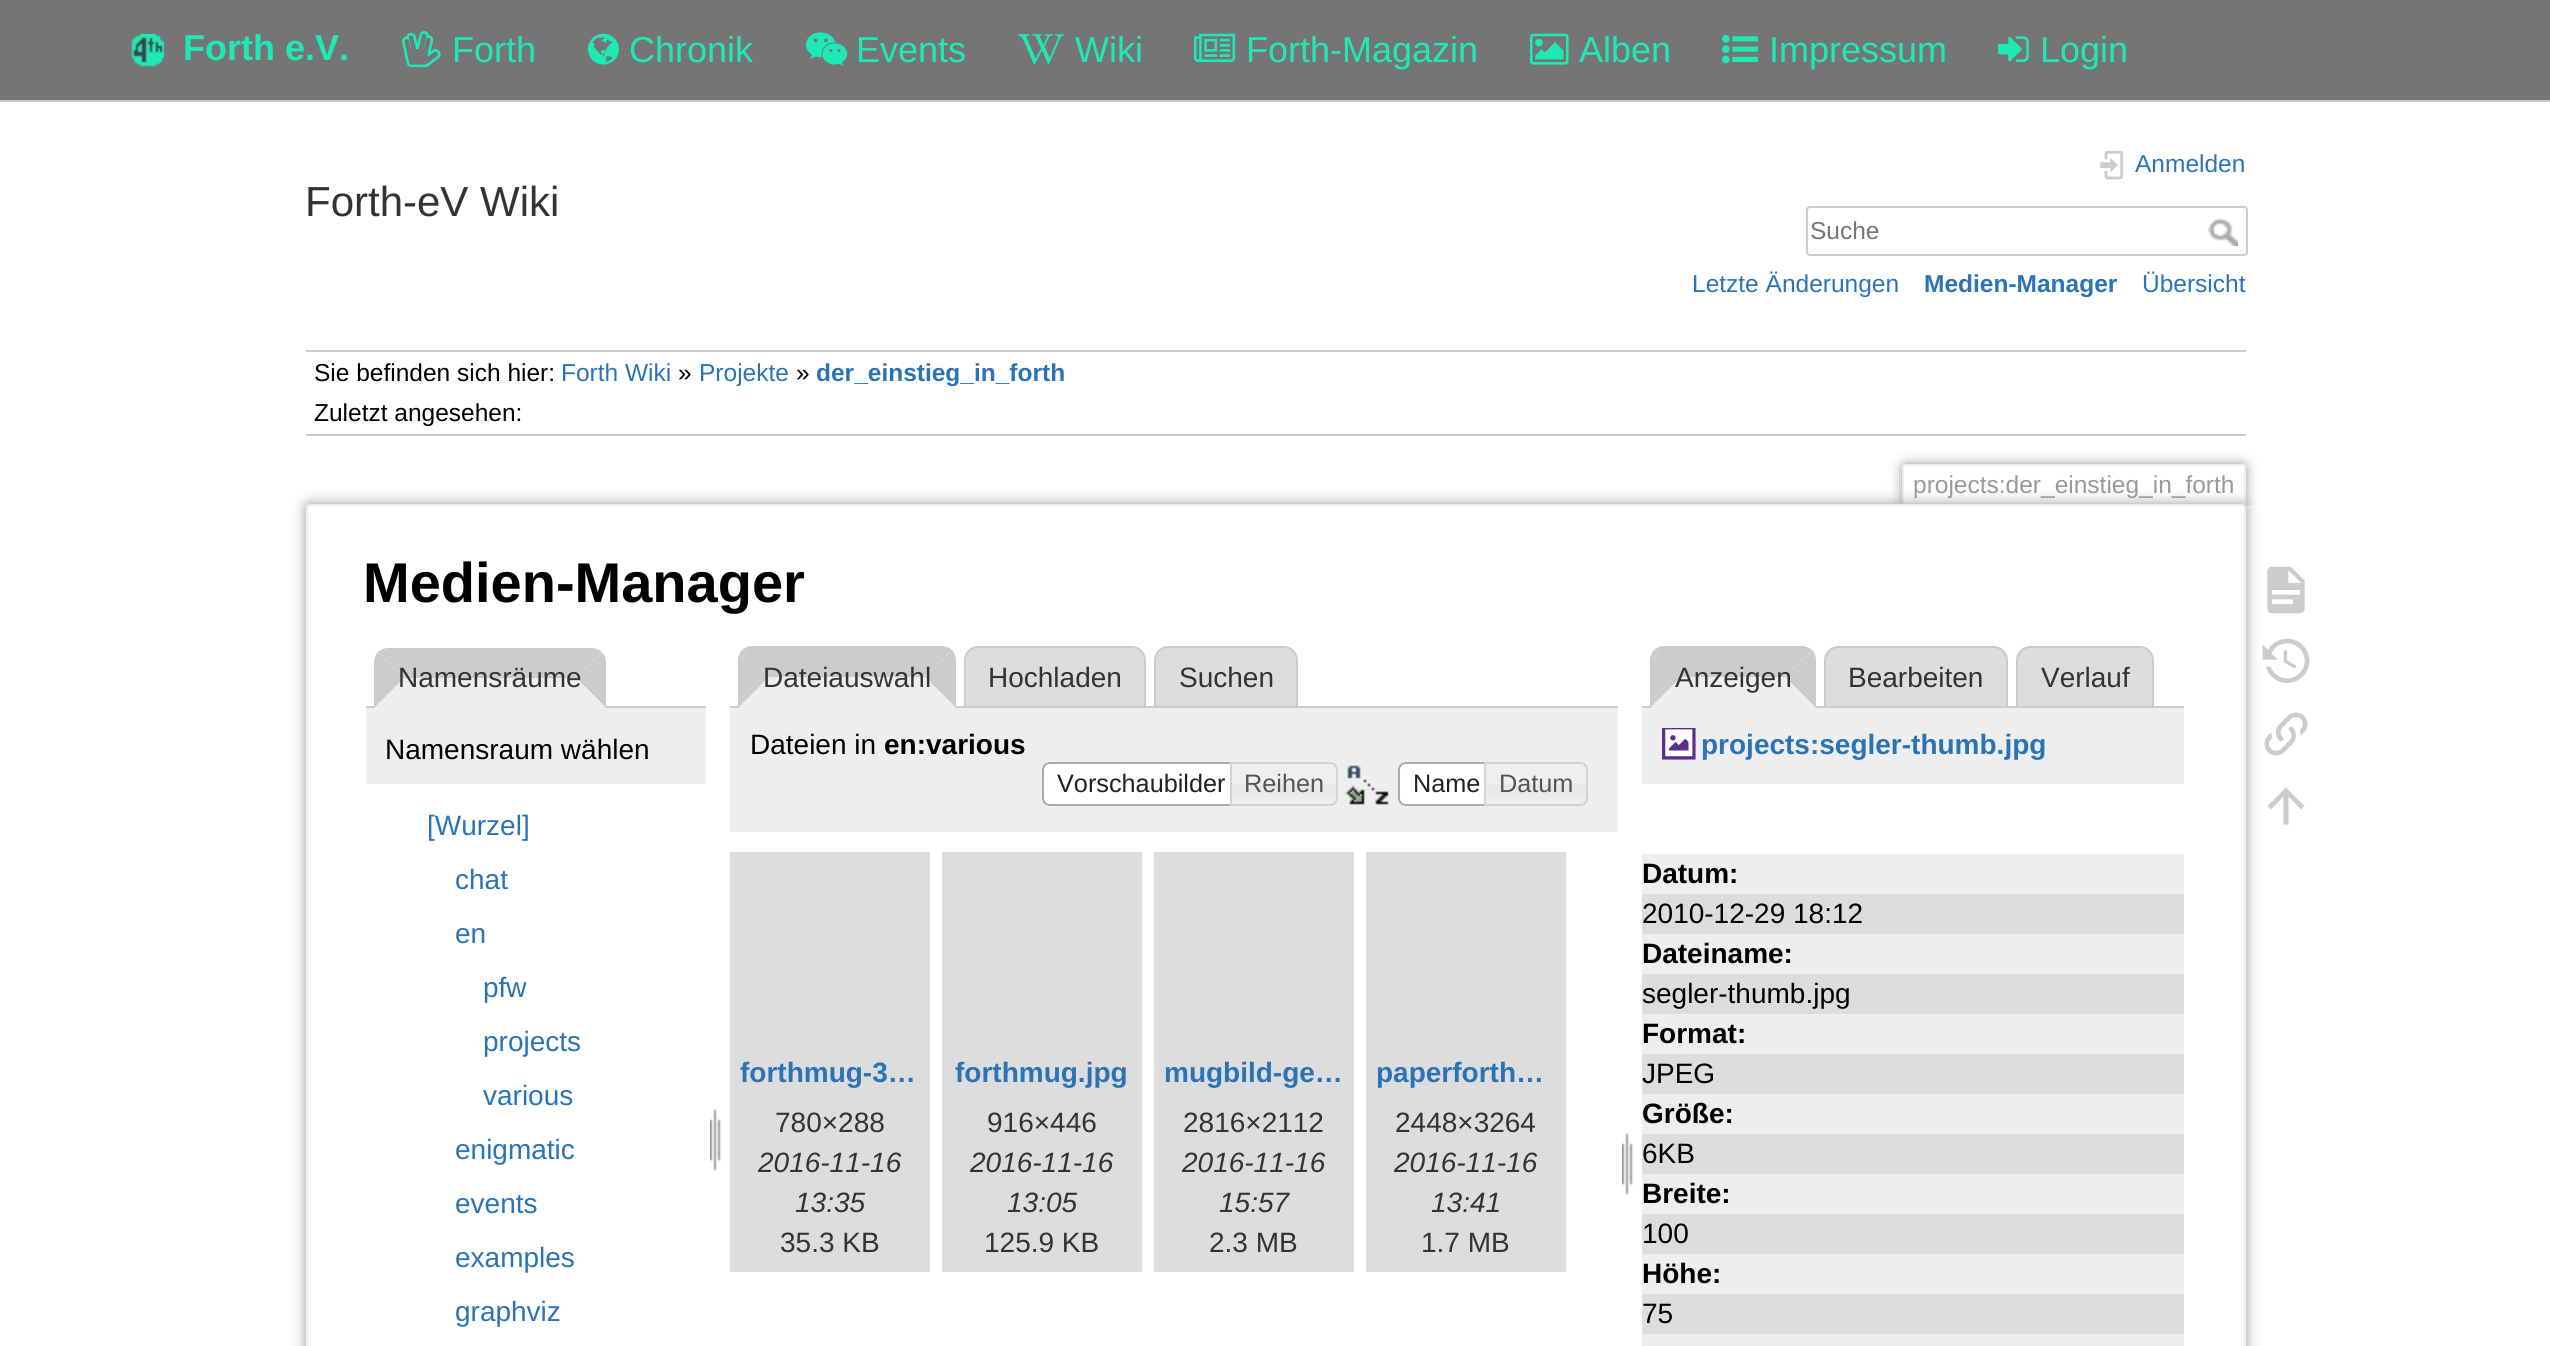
#include <cairo.h>
#include <math.h>
#include <stddef.h>

static cairo_t *c;
static void C(unsigned color){cairo_set_source_rgb(c, (color >> 16) / 255.0, (color >> 8 & 255) / 255.0, (color & 255) / 255.0);}
static void F(const char *family, double size, int italic, int bold){cairo_select_font_face(c, family, italic ? CAIRO_FONT_SLANT_ITALIC : CAIRO_FONT_SLANT_NORMAL,bold ? CAIRO_FONT_WEIGHT_BOLD : CAIRO_FONT_WEIGHT_NORMAL);cairo_set_font_size(c, size);}
static void T(double x, double y, const char *s){cairo_move_to(c, x, y);cairo_show_text(c, s);}
static void R(double x, double y, double w, double h){cairo_rectangle(c, x, y, w, h);cairo_fill(c);}
static void Q(double x, double y, double w, double h, double r){cairo_new_sub_path(c);cairo_arc(c, x + w - r, y + h - r, r, 0, M_PI / 2);cairo_arc(c, x + r, y + h - r, r, M_PI / 2, M_PI);cairo_arc(c, x + r, y + r, r, M_PI, 1.5 * M_PI);cairo_arc(c, x + w - r, y + r, r, 1.5 * M_PI, 2 * M_PI);cairo_close_path(c);}
static void S(double x, double y, double w, double h, double r, double blur, double alpha){cairo_push_group_with_content(c, CAIRO_CONTENT_ALPHA);cairo_set_operator(c, CAIRO_OPERATOR_SOURCE);for (int i = 15; i >= -15 && fmin(w, h) + blur * i / 3 > 0; i -= 2) {double e = blur * i / 6;cairo_set_source_rgba(c, 0, 0, 0, alpha * erfc((i - 1) / 8.5) / 2);Q(x - e, y - e, w + 2 * e, h + 2 * e, fmax(0, fmin(r + e + blur * .6, fmin(w, h) / 2 + e)));cairo_fill(c);}cairo_pattern_t *soft = cairo_pop_group(c);cairo_mask(c, soft);cairo_pattern_destroy(soft);}
static void I(const char *path, double x, double y, double w, double h){cairo_surface_t *image = cairo_image_surface_create_from_png(path);cairo_save(c);cairo_set_source_surface(c, image, x, y);cairo_rectangle(c, x, y, w, h);cairo_fill(c);cairo_restore(c);cairo_surface_destroy(image);}
int main(void) {
cairo_surface_t *surface = cairo_image_surface_create(CAIRO_FORMAT_RGB24, 2550, 1346);
c = cairo_create(surface);
cairo_font_options_t *options = cairo_font_options_create();
cairo_font_options_set_hint_metrics(options, CAIRO_HINT_METRICS_OFF);
cairo_font_options_set_hint_style(options, CAIRO_HINT_STYLE_NONE);
cairo_set_font_options(c, options);
cairo_set_miter_limit(c, 4);
C(0xffffff);
cairo_paint(c);
C(0x757575);
R(0,0,2550,100);
C(0xcccccc);
R(0,100,2550,2);
I("1.png",131,34,33,33);
F("Liberation Sans",36,0,1);
C(0x1de9b6);
T(183,60,"Forth e.V.");
I("2.png",402,31,39,37);
F("Liberation Sans",36,0,0);
T(452,62,"Forth");
I("3.png",588,33,31,32);
T(629,62,"Chronik");
I("4.png",806,32,42,34);
T(856,62,"Events");
I("5.png",1018,34,47,31);
T(1075,62,"Wiki");
I("6.png",1194,33,42,29);
T(1246,62,"Forth-Magazin");
I("7.png",1530,33,39,32);
T(1579,62,"Alben");
I("8.png",1722,35,36,29);
T(1769,62,"Impressum");
I("9.png",1998,36,31,26);
T(2040,62,"Login");
F("Liberation Sans",42,0,0);
C(0x333333);
T(305,216,"Forth-eV Wiki");
I("10.png",2100,150,24,30);
F("Liberation Sans",24.5,0,0);
C(0x2b73b7);
T(2135,172,"Anmelden");
Q(1807,207,440,48,3);
C(0xcccccc);
cairo_stroke(c);
C(0x757575);
T(1810,239,"Suche");
I("11.png",2208,218,30,28);
C(0x2b73b7);
T(1692,292,"Letzte Änderungen");
F("Liberation Sans",24.5,0,1);
T(1924,292,"Medien-Manager");
F("Liberation Sans",24.5,0,0);
T(2142,292,"Übersicht");
C(0xcccccc);
R(306,350,1940,2);
C(0x000000);
T(314,381,"Sie befinden sich hier:");
C(0x2b73b7);
T(561,381,"Forth Wiki");
C(0x000000);
T(678,381,"»");
C(0x2b73b7);
T(699,381,"Projekte");
C(0x000000);
T(796,381,"»");
F("Liberation Sans",24.5,0,1);
C(0x2b73b7);
T(816,381,"der_einstieg_in_forth");
C(0xcccccc);
R(306,434,1940,2);
F("Liberation Sans",24.5,0,0);
C(0x000000);
T(314,421,"Zuletzt angesehen:");
cairo_save(c);
cairo_rectangle(c,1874,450,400,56);
cairo_clip(c);
cairo_set_fill_rule(c,CAIRO_FILL_RULE_EVEN_ODD);
cairo_new_path(c);
cairo_move_to(c,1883,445);
cairo_line_to(c,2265,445);
cairo_line_to(c,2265,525);
cairo_line_to(c,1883,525);
cairo_close_path(c);
cairo_move_to(c,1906,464);
cairo_line_to(c,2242,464);
cairo_curve_to(c,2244,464,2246,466,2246,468);
cairo_line_to(c,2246,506);
cairo_line_to(c,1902,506);
cairo_line_to(c,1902,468);
cairo_curve_to(c,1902,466,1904,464,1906,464);
cairo_close_path(c);
cairo_clip(c);
C(0x999999);
S(1902,464,344,42,4,6,1);
cairo_restore(c);
C(0xeeeeee);
R(1904,464,340,2);
R(2244,466,2,40);
R(1902,466,2,40);
C(0x999999);
T(1913,493,"projects:der_einstieg_in_forth");
C(0x999999);
S(306,504,1940,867,4,7,1);
C(0xffffff);
Q(307,505,1938,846,3);
cairo_fill_preserve(c);
C(0xeeeeee);
cairo_stroke(c);
F("Liberation Sans",56,0,1);
C(0x000000);
T(363,602,"Medien-Manager");
C(0xcccccc);
cairo_new_path(c);
cairo_move_to(c,388,648);
cairo_line_to(c,592,648);
cairo_curve_to(c,596,648,600,650,602,652);
cairo_line_to(c,576,678);
cairo_line_to(c,404,678);
cairo_line_to(c,378,652);
cairo_curve_to(c,380,650,384,648,388,648);
cairo_close_path(c);
cairo_fill(c);
R(366,706,340,2);
cairo_new_path(c);
cairo_move_to(c,602,652);
cairo_line_to(c,576,678);
cairo_line_to(c,606,708);
cairo_line_to(c,606,662);
cairo_curve_to(c,606,658,604,654,602,652);
cairo_close_path(c);
cairo_fill(c);
C(0xeeeeee);
cairo_new_path(c);
cairo_move_to(c,606,708);
cairo_line_to(c,576,678);
cairo_line_to(c,404,678);
cairo_line_to(c,374,708);
cairo_close_path(c);
cairo_fill(c);
C(0xcccccc);
cairo_new_path(c);
cairo_move_to(c,374,708);
cairo_line_to(c,374,662);
cairo_curve_to(c,374,658,376,654,378,652);
cairo_line_to(c,404,678);
cairo_close_path(c);
cairo_fill(c);
F("Liberation Sans",28,0,0);
C(0x333333);
T(398,687,"Namensräume");
C(0xeeeeee);
R(366,708,340,76);
C(0x000000);
T(385,759,"Namensraum wählen");
C(0x2b73b7);
T(427,835,"[Wurzel]");
T(455,889,"chat");
T(455,943,"en");
T(483,997,"pfw");
T(483,1051,"projects");
T(483,1105,"various");
T(455,1159,"enigmatic");
T(455,1213,"events");
T(455,1267,"examples");
T(455,1321,"graphviz");
I("12.png",710,1108,11,63);
C(0xcccccc);
cairo_new_path(c);
cairo_move_to(c,752,646);
cairo_line_to(c,942,646);
cairo_curve_to(c,946,646,950,648,952,650);
cairo_line_to(c,925,677);
cairo_line_to(c,769,677);
cairo_line_to(c,742,650);
cairo_curve_to(c,744,648,748,646,752,646);
cairo_close_path(c);
cairo_fill(c);
C(0xdddddd);
cairo_new_path(c);
cairo_move_to(c,978,647);
cairo_line_to(c,1132,647);
cairo_curve_to(c,1139,647,1145,653,1145,660);
cairo_line_to(c,1145,707);
cairo_line_to(c,965,707);
cairo_line_to(c,965,660);
cairo_curve_to(c,965,653,971,647,978,647);
cairo_close_path(c);
cairo_fill_preserve(c);
C(0xcccccc);
cairo_stroke(c);
C(0xdddddd);
cairo_new_path(c);
cairo_move_to(c,1168,647);
cairo_line_to(c,1284,647);
cairo_curve_to(c,1291,647,1297,653,1297,660);
cairo_line_to(c,1297,707);
cairo_line_to(c,1155,707);
cairo_line_to(c,1155,660);
cairo_curve_to(c,1155,653,1161,647,1168,647);
cairo_close_path(c);
cairo_fill_preserve(c);
C(0xcccccc);
cairo_stroke(c);
R(730,706,888,2);
cairo_new_path(c);
cairo_move_to(c,952,650);
cairo_line_to(c,925,677);
cairo_line_to(c,956,708);
cairo_line_to(c,956,660);
cairo_curve_to(c,956,656,954,652,952,650);
cairo_close_path(c);
cairo_fill(c);
C(0xeeeeee);
cairo_new_path(c);
cairo_move_to(c,956,708);
cairo_line_to(c,925,677);
cairo_line_to(c,769,677);
cairo_line_to(c,738,708);
cairo_close_path(c);
cairo_fill(c);
C(0xcccccc);
cairo_new_path(c);
cairo_move_to(c,738,708);
cairo_line_to(c,738,660);
cairo_curve_to(c,738,656,740,652,742,650);
cairo_line_to(c,769,677);
cairo_close_path(c);
cairo_fill(c);
C(0x333333);
T(763,687,"Dateiauswahl");
T(988,687,"Hochladen");
T(1179,687,"Suchen");
C(0xeeeeee);
R(730,708,888,124);
C(0x000000);
T(750,754,"Dateien in");
F("Liberation Sans",28,0,1);
T(884,754,"en:various");
C(0xffffff);
cairo_new_path(c);
cairo_move_to(c,1050,762);
cairo_line_to(c,1240,762);
cairo_line_to(c,1240,806);
cairo_line_to(c,1050,806);
cairo_curve_to(c,1045.5,806,1042,802.5,1042,798);
cairo_line_to(c,1042,770);
cairo_curve_to(c,1042,765.5,1045.5,762,1050,762);
cairo_close_path(c);
cairo_fill(c);
I("13.png",1042,762,6,44);
cairo_new_path(c);
cairo_move_to(c,1050,763);
cairo_line_to(c,1239,763);
cairo_line_to(c,1239,805);
cairo_line_to(c,1050,805);
cairo_curve_to(c,1046,805,1043,802,1043,798);
cairo_line_to(c,1043,770);
cairo_curve_to(c,1043,766,1046,763,1050,763);
cairo_close_path(c);
C(0xaaaaaa);
cairo_stroke(c);
F("Liberation Sans",25.25,0,0);
C(0x212121);
T(1057,792,"Vorschaubilder");
I("14.png",1232,762,106,44);
cairo_new_path(c);
cairo_move_to(c,1231,763);
cairo_line_to(c,1330,763);
cairo_curve_to(c,1334,763,1337,766,1337,770);
cairo_line_to(c,1337,798);
cairo_curve_to(c,1337,802,1334,805,1330,805);
cairo_line_to(c,1231,805);
cairo_close_path(c);
C(0xd3d3d3);
cairo_stroke(c);
C(0x555555);
T(1244,792,"Reihen");
I("15.png",1345,765,44,40);
C(0xffffff);
cairo_new_path(c);
cairo_move_to(c,1406,762);
cairo_line_to(c,1494,762);
cairo_line_to(c,1494,806);
cairo_line_to(c,1406,806);
cairo_curve_to(c,1401.5,806,1398,802.5,1398,798);
cairo_line_to(c,1398,770);
cairo_curve_to(c,1398,765.5,1401.5,762,1406,762);
cairo_close_path(c);
cairo_fill(c);
I("13.png",1398,762,6,44);
cairo_new_path(c);
cairo_move_to(c,1406,763);
cairo_line_to(c,1493,763);
cairo_line_to(c,1493,805);
cairo_line_to(c,1406,805);
cairo_curve_to(c,1402,805,1399,802,1399,798);
cairo_line_to(c,1399,770);
cairo_curve_to(c,1399,766,1402,763,1406,763);
cairo_close_path(c);
C(0xaaaaaa);
cairo_stroke(c);
C(0x212121);
T(1413,792,"Name");
I("16.png",1486,762,102,44);
cairo_new_path(c);
cairo_move_to(c,1485,763);
cairo_line_to(c,1580,763);
cairo_curve_to(c,1584,763,1587,766,1587,770);
cairo_line_to(c,1587,798);
cairo_curve_to(c,1587,802,1584,805,1580,805);
cairo_line_to(c,1485,805);
cairo_close_path(c);
C(0xd3d3d3);
cairo_stroke(c);
C(0x555555);
T(1499,792,"Datum");
C(0xdddddd);
R(730,852,200,420);
F("Liberation Sans",28,0,1);
C(0x2b73b7);
T(740,1082,"forthmug-3…");
F("Liberation Sans",28,0,0);
C(0x333333);
T(775,1132,"780×288");
F("Liberation Sans",28,1,0);
T(758,1172,"2016-11-16");
T(795,1212,"13:35");
F("Liberation Sans",28,0,0);
T(780,1252,"35.3 KB");
C(0xdddddd);
R(942,852,200,420);
F("Liberation Sans",28,0,1);
C(0x2b73b7);
T(955,1082,"forthmug.jpg");
F("Liberation Sans",28,0,0);
C(0x333333);
T(987,1132,"916×446");
F("Liberation Sans",28,1,0);
T(970,1172,"2016-11-16");
T(1007,1212,"13:05");
F("Liberation Sans",28,0,0);
T(984,1252,"125.9 KB");
C(0xdddddd);
R(1154,852,200,420);
F("Liberation Sans",28,0,1);
C(0x2b73b7);
T(1164,1082,"mugbild-ge…");
F("Liberation Sans",28,0,0);
C(0x333333);
T(1183,1132,"2816×2112");
F("Liberation Sans",28,1,0);
T(1182,1172,"2016-11-16");
T(1219,1212,"15:57");
F("Liberation Sans",28,0,0);
T(1209,1252,"2.3 MB");
C(0xdddddd);
R(1366,852,200,420);
F("Liberation Sans",28,0,1);
C(0x2b73b7);
T(1376,1082,"paperforth…");
F("Liberation Sans",28,0,0);
C(0x333333);
T(1395,1132,"2448×3264");
F("Liberation Sans",28,1,0);
T(1394,1172,"2016-11-16");
T(1431,1212,"13:41");
F("Liberation Sans",28,0,0);
T(1421,1252,"1.7 MB");
I("12.png",1622,1132,11,63);
C(0xcccccc);
cairo_new_path(c);
cairo_move_to(c,1664,646);
cairo_line_to(c,1802,646);
cairo_curve_to(c,1806,646,1810,648,1812,650);
cairo_line_to(c,1785,677);
cairo_line_to(c,1681,677);
cairo_line_to(c,1654,650);
cairo_curve_to(c,1656,648,1660,646,1664,646);
cairo_close_path(c);
cairo_fill(c);
C(0xdddddd);
cairo_new_path(c);
cairo_move_to(c,1838,647);
cairo_line_to(c,1994,647);
cairo_curve_to(c,2001,647,2007,653,2007,660);
cairo_line_to(c,2007,707);
cairo_line_to(c,1825,707);
cairo_line_to(c,1825,660);
cairo_curve_to(c,1825,653,1831,647,1838,647);
cairo_close_path(c);
cairo_fill_preserve(c);
C(0xcccccc);
cairo_stroke(c);
C(0xdddddd);
cairo_new_path(c);
cairo_move_to(c,2030,647);
cairo_line_to(c,2140,647);
cairo_curve_to(c,2147,647,2153,653,2153,660);
cairo_line_to(c,2153,707);
cairo_line_to(c,2017,707);
cairo_line_to(c,2017,660);
cairo_curve_to(c,2017,653,2023,647,2030,647);
cairo_close_path(c);
cairo_fill_preserve(c);
C(0xcccccc);
cairo_stroke(c);
R(1642,706,542,2);
cairo_new_path(c);
cairo_move_to(c,1812,650);
cairo_line_to(c,1785,677);
cairo_line_to(c,1816,708);
cairo_line_to(c,1816,660);
cairo_curve_to(c,1816,656,1814,652,1812,650);
cairo_close_path(c);
cairo_fill(c);
C(0xeeeeee);
cairo_new_path(c);
cairo_move_to(c,1816,708);
cairo_line_to(c,1785,677);
cairo_line_to(c,1681,677);
cairo_line_to(c,1650,708);
cairo_close_path(c);
cairo_fill(c);
C(0xcccccc);
cairo_new_path(c);
cairo_move_to(c,1650,708);
cairo_line_to(c,1650,660);
cairo_curve_to(c,1650,656,1652,652,1654,650);
cairo_line_to(c,1681,677);
cairo_close_path(c);
cairo_fill(c);
C(0x333333);
T(1675,687,"Anzeigen");
T(1848,687,"Bearbeiten");
T(2041,687,"Verlauf");
C(0xeeeeee);
R(1642,708,542,76);
I("17.png",1662,728,34,32);
F("Liberation Sans",28,0,1);
C(0x2b73b7);
T(1701,754,"projects:segler-thumb.jpg");
C(0xeeeeee);
R(1642,854,542,40);
C(0x000000);
T(1642,883,"Datum:");
C(0xdddddd);
R(1642,894,542,40);
F("Liberation Sans",28,0,0);
C(0x000000);
T(1642,923,"2010-12-29 18:12");
C(0xeeeeee);
R(1642,934,542,40);
F("Liberation Sans",28,0,1);
C(0x000000);
T(1642,963,"Dateiname:");
C(0xdddddd);
R(1642,974,542,40);
F("Liberation Sans",28,0,0);
C(0x000000);
T(1642,1003,"segler-thumb.jpg");
C(0xeeeeee);
R(1642,1014,542,40);
F("Liberation Sans",28,0,1);
C(0x000000);
T(1642,1043,"Format:");
C(0xdddddd);
R(1642,1054,542,40);
F("Liberation Sans",28,0,0);
C(0x000000);
T(1642,1083,"JPEG");
C(0xeeeeee);
R(1642,1094,542,40);
F("Liberation Sans",28,0,1);
C(0x000000);
T(1642,1123,"Größe:");
C(0xdddddd);
R(1642,1134,542,40);
F("Liberation Sans",28,0,0);
C(0x000000);
T(1642,1163,"6KB");
C(0xeeeeee);
R(1642,1174,542,40);
F("Liberation Sans",28,0,1);
C(0x000000);
T(1642,1203,"Breite:");
C(0xdddddd);
R(1642,1214,542,40);
F("Liberation Sans",28,0,0);
C(0x000000);
T(1642,1243,"100");
C(0xeeeeee);
R(1642,1254,542,40);
F("Liberation Sans",28,0,1);
C(0x000000);
T(1642,1283,"Höhe:");
C(0xdddddd);
R(1642,1294,542,40);
F("Liberation Sans",28,0,0);
C(0x000000);
T(1642,1323,"75");
C(0xeeeeee);
R(1642,1334,542,12);
I("18.png",2267,566,38,48);
I("19.png",2262,638,48,45);
I("20.png",2264,712,44,44);
C(0xcccccc);
cairo_new_path(c);
cairo_move_to(c,2288.5,824.5);
cairo_line_to(c,2283.5,824.5);
cairo_line_to(c,2283.5,796.5);
cairo_line_to(c,2271,809.5);
cairo_line_to(c,2267.5,806);
cairo_line_to(c,2286,787.5);
cairo_line_to(c,2304.5,806);
cairo_line_to(c,2301,809.5);
cairo_line_to(c,2288.5,796.5);
cairo_close_path(c);
cairo_fill(c);
cairo_surface_write_to_png(surface, "o.png");
cairo_font_options_destroy(options);
cairo_destroy(c);
cairo_surface_destroy(surface);
return 0;
}
